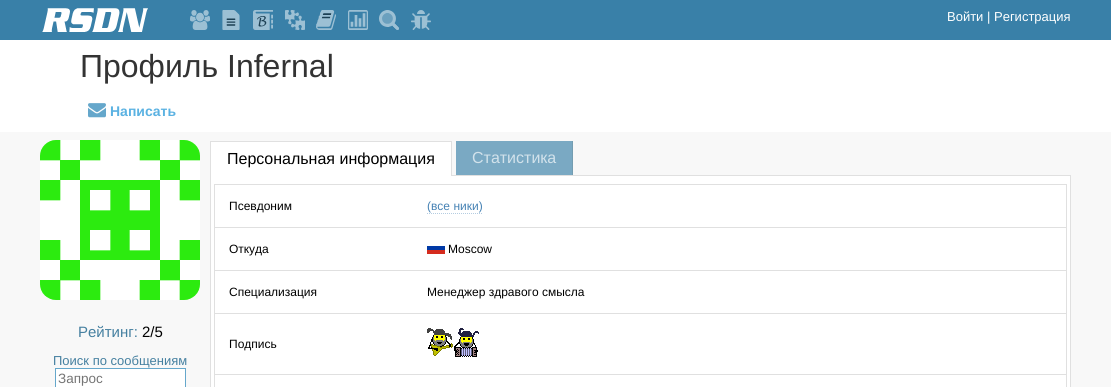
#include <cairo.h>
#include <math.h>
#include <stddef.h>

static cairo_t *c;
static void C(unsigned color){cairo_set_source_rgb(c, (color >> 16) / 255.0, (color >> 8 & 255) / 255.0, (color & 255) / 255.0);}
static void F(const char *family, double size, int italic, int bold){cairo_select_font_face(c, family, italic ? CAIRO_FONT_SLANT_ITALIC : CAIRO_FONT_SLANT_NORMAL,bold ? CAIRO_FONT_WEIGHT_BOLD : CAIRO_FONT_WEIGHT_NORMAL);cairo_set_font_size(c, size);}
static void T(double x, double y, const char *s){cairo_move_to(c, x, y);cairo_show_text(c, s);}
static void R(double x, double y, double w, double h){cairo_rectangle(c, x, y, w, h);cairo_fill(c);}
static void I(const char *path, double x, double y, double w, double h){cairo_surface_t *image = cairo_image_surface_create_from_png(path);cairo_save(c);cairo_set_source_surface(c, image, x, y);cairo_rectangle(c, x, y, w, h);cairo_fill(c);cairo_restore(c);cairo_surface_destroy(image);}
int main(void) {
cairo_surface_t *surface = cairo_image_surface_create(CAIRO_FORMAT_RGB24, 1111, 387);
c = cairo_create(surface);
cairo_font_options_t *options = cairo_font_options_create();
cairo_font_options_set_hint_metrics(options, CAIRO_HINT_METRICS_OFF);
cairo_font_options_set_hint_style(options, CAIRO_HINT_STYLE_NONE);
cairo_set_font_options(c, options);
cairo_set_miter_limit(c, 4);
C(0xffffff);
cairo_paint(c);
C(0x3980a8);
R(0,0,1111,40);
I("1.png",42,8,106,24);
I("2.png",190,10,20,20);
I("3.png",222,10,18,20);
I("4.png",253,10,20,20);
I("5.png",285,10,20,20);
I("6.png",316,10,20,20);
I("7.png",348,10,20,20);
I("8.png",379,10,20,20);
I("9.png",411,10,20,20);
F("Liberation Sans",13,0,0);
C(0xffffff);
T(947,21,"Войти | Регистрация");
F("Liberation Sans",32,0,0);
C(0x333333);
T(80,77,"Профиль Infernal");
I("10.png",88,103,18,15);
F("Liberation Sans",14,0,1);
C(0x5bb2e2);
T(110,116,"Написать");
C(0xf8f8f8);
R(0,132,1111,255);
I("11.png",40,140,160,160);
F("Liberation Sans",15,0,0);
C(0x4580a0);
T(78,337,"Рейтинг:");
C(0x000000);
T(142,337,"2/5");
F("Liberation Sans",13,0,0);
C(0x4580a0);
T(53,365,"Поиск по сообщениям");
C(0xffffff);
cairo_rectangle(c,55.5,368.5,130,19);
cairo_fill_preserve(c);
C(0x65a7cb);
cairo_set_line_width(c,1);
cairo_stroke(c);
F("Liberation Sans",13.5,0,0);
C(0x757575);
T(58,383,"Запрос");
C(0xffffff);
cairo_rectangle(c,210.5,175.5,860,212);
cairo_fill_preserve(c);
C(0xe0e0e0);
cairo_stroke(c);
C(0xffffff);
R(211,142,240,34);
C(0xe0e0e0);
R(210,141,242,1);
R(451,141,1,35);
R(210,141,1,35);
F("Liberation Sans",16,0,0);
C(0x000000);
T(227,164,"Персональная информация");
C(0x7aa9c3);
R(456,141,116,34);
C(0x749db1);
R(572,141,1,34);
C(0xd2e2eb);
T(472,163,"Статистика");
C(0xe0e0e0);
R(214,184,853,1);
R(214,184,1,43);
F("Liberation Sans",12,0,0);
C(0x000000);
T(229,210,"Псевдоним");
C(0xe0e0e0);
R(1066,184,1,43);
C(0x4682b4);
T(427,210,"(все ники)");
cairo_new_path(c);
cairo_move_to(c,427,213.5);
cairo_line_to(c,483,213.5);
C(0xb5cde1);
cairo_set_dash(c,(double[]){1,1},2,0);
cairo_stroke(c);
C(0xe0e0e0);
R(214,227,853,1);
R(214,227,1,43);
C(0x000000);
T(229,253,"Откуда");
C(0xe0e0e0);
R(1066,227,1,43);
I("12.png",427,246,18,8);
C(0x000000);
T(448,253,"Moscow");
C(0xe0e0e0);
R(214,270,853,1);
R(214,270,1,43);
C(0x000000);
T(229,296,"Специализация");
C(0xe0e0e0);
R(1066,270,1,43);
C(0x000000);
T(427,296,"Менеджер здравого смысла");
C(0xe0e0e0);
R(214,313,853,1);
R(214,313,1,61);
C(0x000000);
T(229,348,"Подпись");
C(0xe0e0e0);
R(1066,313,1,61);
I("13.png",427,328,52,29);
R(214,374,853,1);
R(214,374,1,13);
R(1066,374,1,13);
cairo_surface_write_to_png(surface, "o.png");
cairo_font_options_destroy(options);
cairo_destroy(c);
cairo_surface_destroy(surface);
return 0;
}
